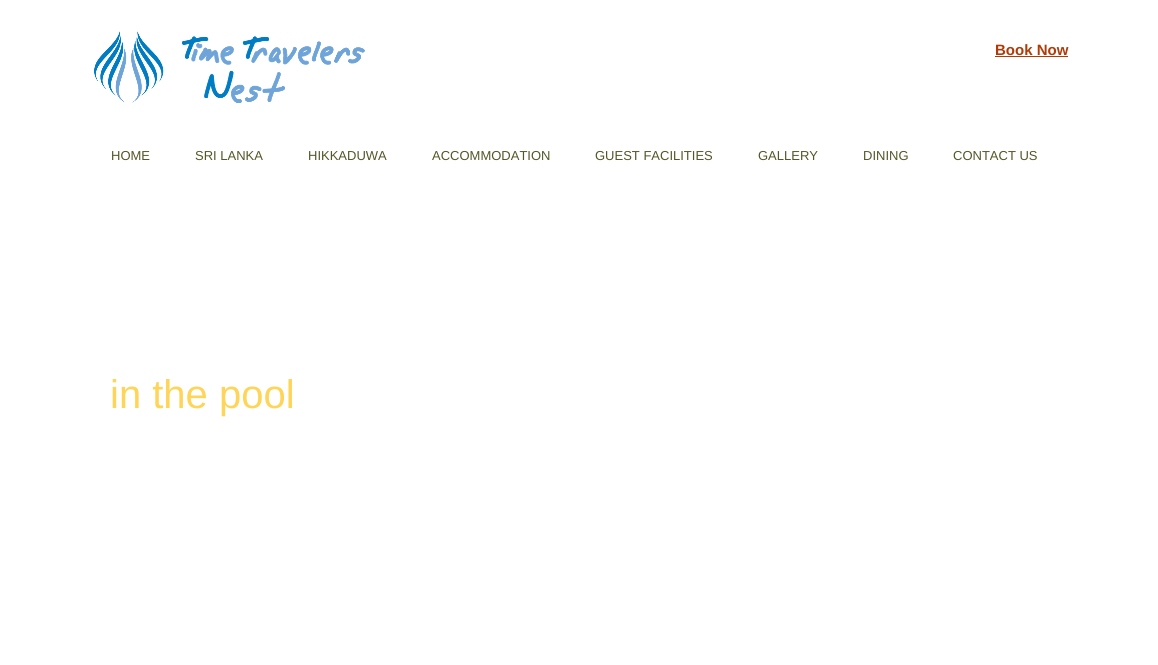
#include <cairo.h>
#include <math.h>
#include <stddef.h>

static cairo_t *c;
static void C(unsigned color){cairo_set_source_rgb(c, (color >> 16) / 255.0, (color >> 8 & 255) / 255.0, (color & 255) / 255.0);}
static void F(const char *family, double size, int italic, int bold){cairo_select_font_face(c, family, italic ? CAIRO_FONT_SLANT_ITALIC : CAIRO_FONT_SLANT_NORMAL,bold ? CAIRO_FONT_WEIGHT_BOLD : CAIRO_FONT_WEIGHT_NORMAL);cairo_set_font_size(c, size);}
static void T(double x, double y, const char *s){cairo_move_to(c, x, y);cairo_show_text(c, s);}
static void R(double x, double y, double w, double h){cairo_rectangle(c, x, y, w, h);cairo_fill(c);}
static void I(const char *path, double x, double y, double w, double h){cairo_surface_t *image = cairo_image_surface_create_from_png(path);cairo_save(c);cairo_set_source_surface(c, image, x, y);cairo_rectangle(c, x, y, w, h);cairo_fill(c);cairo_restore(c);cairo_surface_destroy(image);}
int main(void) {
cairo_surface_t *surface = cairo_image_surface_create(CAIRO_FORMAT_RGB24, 1158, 665);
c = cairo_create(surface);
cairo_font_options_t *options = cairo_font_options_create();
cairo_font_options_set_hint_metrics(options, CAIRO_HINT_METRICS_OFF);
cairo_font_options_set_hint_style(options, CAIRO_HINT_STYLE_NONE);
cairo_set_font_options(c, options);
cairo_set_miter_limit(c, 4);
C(0xffffff);
cairo_paint(c);
I("1.png",94,31,271,72);
F("Liberation Sans",15,0,1);
C(0xaf3b08);
T(995,55,"Book Now");
R(995,56,73,1);
F("Liberation Sans",13,0,0);
C(0x545628);
T(111,160,"HOME");
T(195,160,"SRI LANKA");
T(308,160,"HIKKADUWA");
T(432,160,"ACCOMMODATION");
T(595,160,"GUEST FACILITIES");
T(758,160,"GALLERY");
T(863,160,"DINING");
T(953,160,"CONTACT US");
F("Liberation Sans",40,0,0);
C(0xfed559);
T(110,408,"in the pool");
cairo_surface_write_to_png(surface, "o.png");
cairo_font_options_destroy(options);
cairo_destroy(c);
cairo_surface_destroy(surface);
return 0;
}
